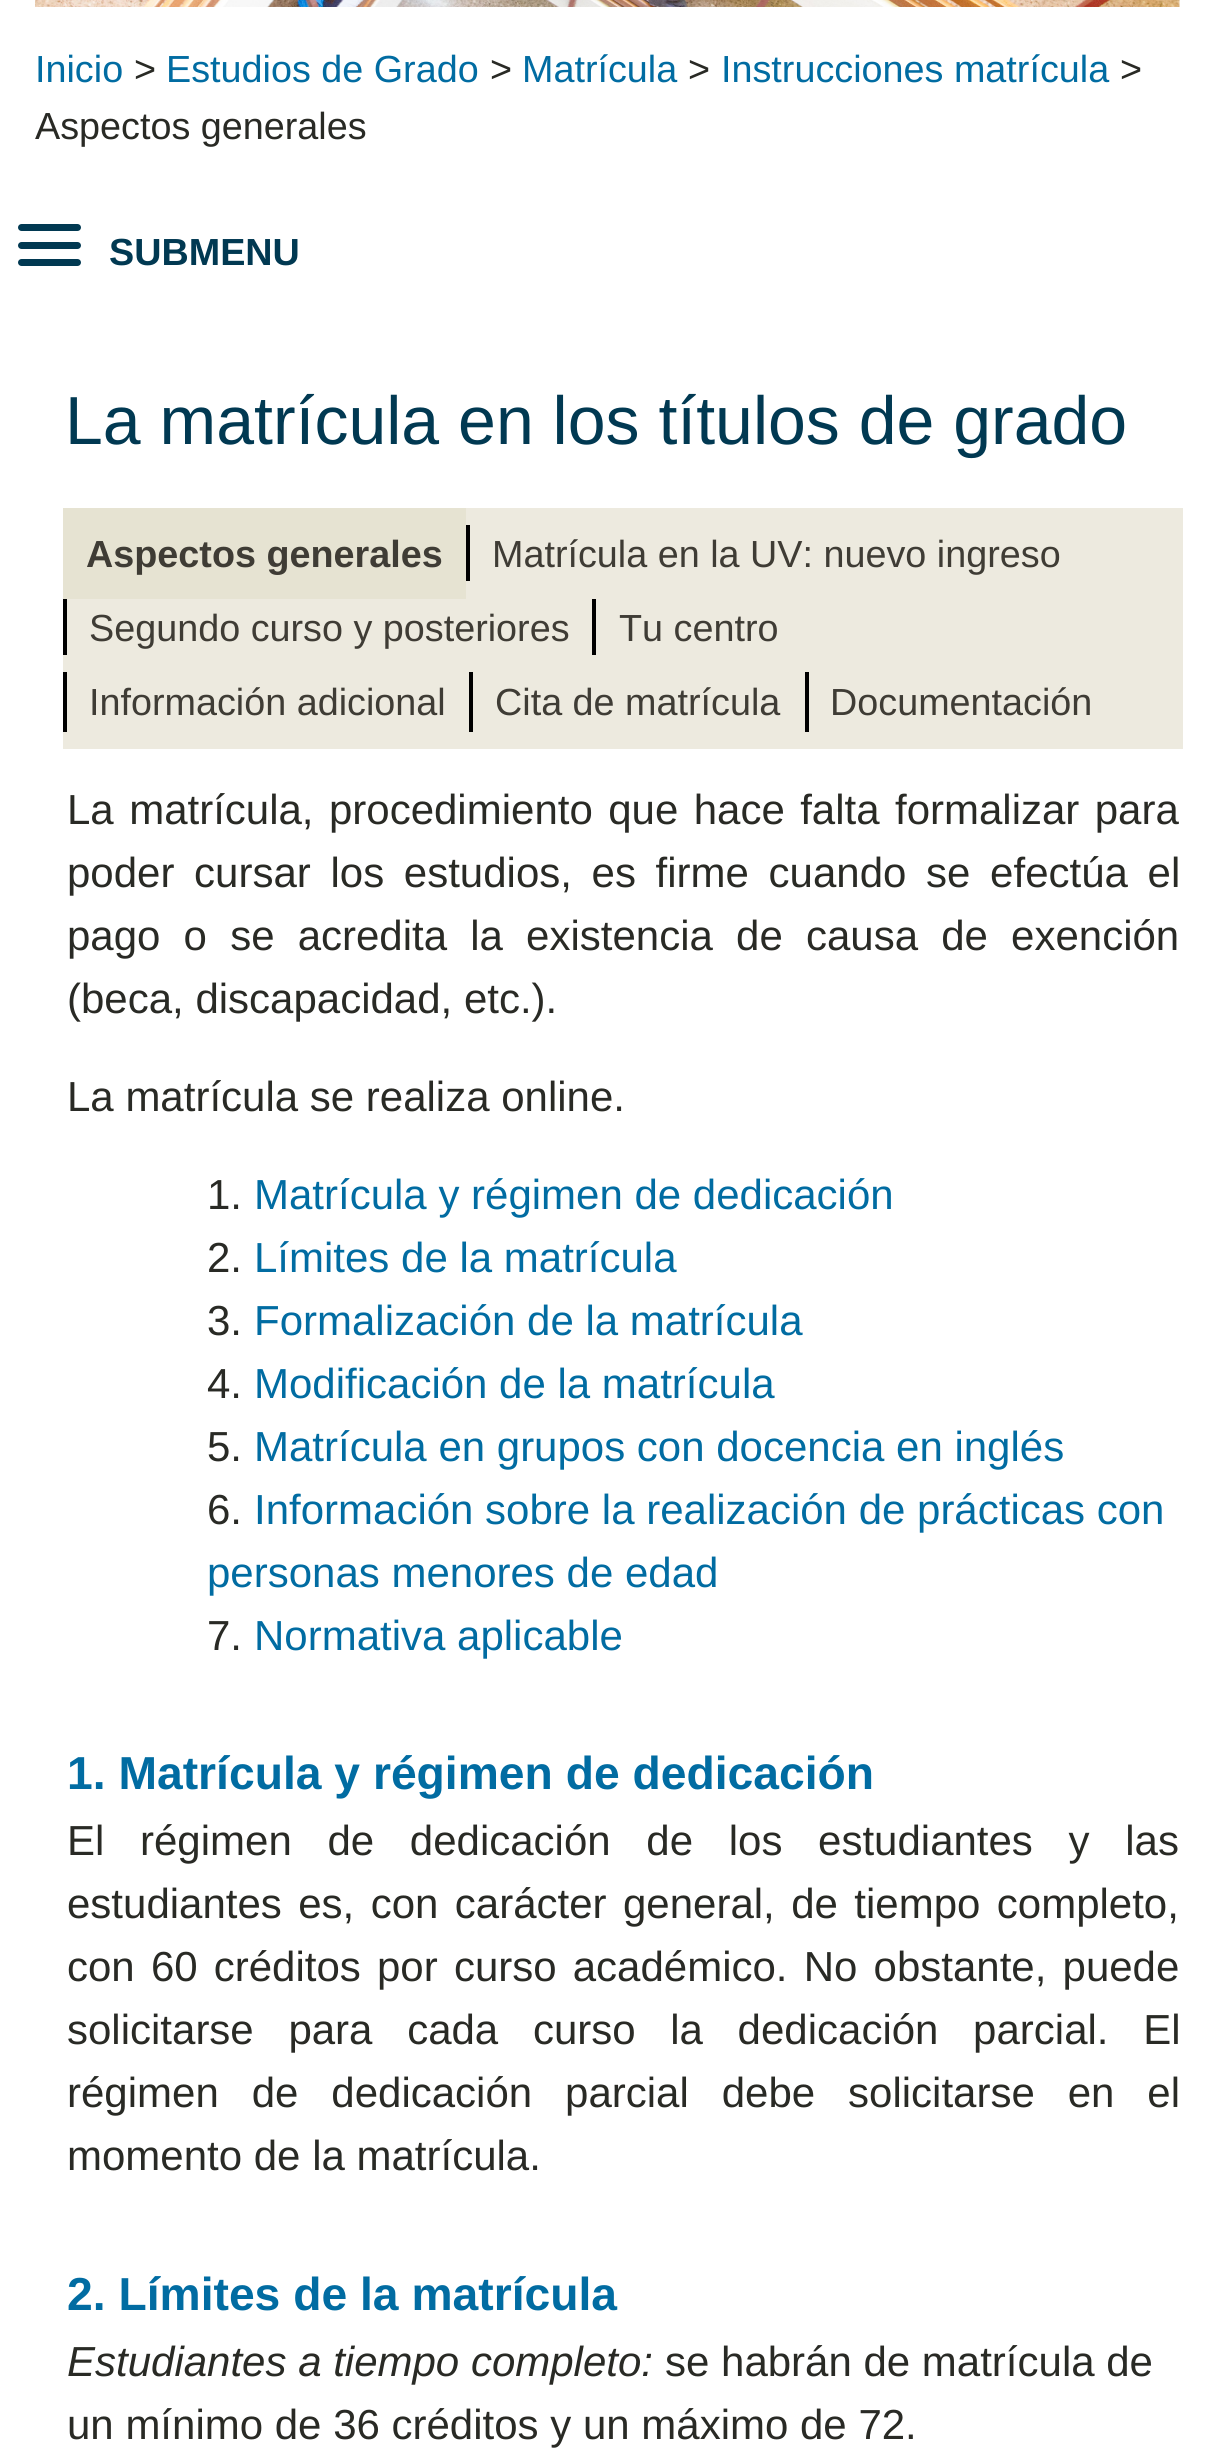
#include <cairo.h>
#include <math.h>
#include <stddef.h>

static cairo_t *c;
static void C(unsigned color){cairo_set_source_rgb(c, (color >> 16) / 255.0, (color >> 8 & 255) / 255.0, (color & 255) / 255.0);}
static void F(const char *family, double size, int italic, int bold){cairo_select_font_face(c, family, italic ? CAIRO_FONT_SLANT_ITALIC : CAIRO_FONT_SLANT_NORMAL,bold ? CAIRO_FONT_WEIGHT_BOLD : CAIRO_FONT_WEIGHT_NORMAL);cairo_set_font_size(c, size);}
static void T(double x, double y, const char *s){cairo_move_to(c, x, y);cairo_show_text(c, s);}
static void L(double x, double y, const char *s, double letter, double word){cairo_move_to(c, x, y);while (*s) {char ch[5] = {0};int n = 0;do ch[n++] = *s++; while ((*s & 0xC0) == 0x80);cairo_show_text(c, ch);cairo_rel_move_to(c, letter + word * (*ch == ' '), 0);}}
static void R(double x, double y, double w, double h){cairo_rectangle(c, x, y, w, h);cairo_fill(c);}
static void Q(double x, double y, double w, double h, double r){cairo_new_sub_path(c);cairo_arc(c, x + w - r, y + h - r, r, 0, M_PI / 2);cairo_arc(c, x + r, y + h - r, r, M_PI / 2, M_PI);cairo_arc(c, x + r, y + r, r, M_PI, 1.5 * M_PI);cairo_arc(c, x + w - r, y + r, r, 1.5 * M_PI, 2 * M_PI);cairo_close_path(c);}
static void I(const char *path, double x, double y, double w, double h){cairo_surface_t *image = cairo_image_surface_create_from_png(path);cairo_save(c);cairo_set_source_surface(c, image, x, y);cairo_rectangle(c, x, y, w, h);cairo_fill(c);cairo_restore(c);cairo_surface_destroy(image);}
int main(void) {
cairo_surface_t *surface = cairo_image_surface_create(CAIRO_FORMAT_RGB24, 1214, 2464);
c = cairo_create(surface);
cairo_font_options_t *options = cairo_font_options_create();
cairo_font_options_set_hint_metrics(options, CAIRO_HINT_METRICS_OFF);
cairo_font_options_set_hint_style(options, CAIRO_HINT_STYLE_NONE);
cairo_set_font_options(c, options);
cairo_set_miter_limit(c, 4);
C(0xffffff);
cairo_paint(c);
I("1.png",35,0,1145,7);
F("Liberation Sans",37.75,0,0);
C(0x016ca2);
T(35,82,"Inicio");
C(0x292a25);
T(134,82,">");
C(0x016ca2);
T(166,82,"Estudios de Grado");
C(0x292a25);
T(490,82,">");
C(0x016ca2);
T(522,82,"Matrícula");
C(0x292a25);
T(688,82,">");
C(0x016ca2);
T(721,82,"Instrucciones matrícula");
C(0x292a25);
T(1120,82,">");
T(35,139,"Aspectos generales");
C(0x013952);
Q(18,224,63,7,3.5);
cairo_fill(c);
Q(18,242,63,7,3.5);
cairo_fill(c);
F("Liberation Sans",37.75,0,1);
T(109,265,"SUBMENU");
Q(18,259,63,7,3.5);
cairo_fill(c);
F("Liberation Sans",68,0,0);
T(65,444,"La matrícula en los títulos de grado");
C(0xedeadf);
R(63,508,1120,241);
C(0xe6e3d2);
R(63,508,403,91);
F("Liberation Sans",37.75,0,1);
C(0x3f3c35);
T(86,567,"Aspectos generales");
C(0x000000);
R(466,525,4,56);
F("Liberation Sans",37.75,0,0);
C(0x3f3c35);
T(492,567,"Matrícula en la UV: nuevo ingreso");
C(0x000000);
R(63,599,4,56);
C(0x3f3c35);
T(89,641,"Segundo curso y posteriores");
C(0x000000);
R(592,599,4,56);
C(0x3f3c35);
T(619,641,"Tu centro");
C(0x000000);
R(63,672,4,60);
C(0x3f3c35);
T(89,715,"Información adicional");
C(0x000000);
R(469,672,4,60);
C(0x3f3c35);
T(495,715,"Cita de matrícula");
C(0x000000);
R(805,672,4,60);
C(0x3f3c35);
T(830,715,"Documentación");
F("Liberation Sans",42,0,0);
C(0x292a25);
L(67,824,"La matrícula, procedimiento que hace falta formalizar para",0,3.75);
L(67,887,"poder cursar los estudios, es firme cuando se efectúa el",0,8);
L(67,950,"pago o se acredita la existencia de causa de exención",0,11.5);
T(67,1013,"(beca, discapacidad, etc.).");
T(67,1111,"La matrícula se realiza online.");
T(207,1209,"1.");
C(0x016ca2);
T(254,1209,"Matrícula y régimen de dedicación");
C(0x292a25);
T(207,1272,"2.");
C(0x016ca2);
T(254,1272,"Límites de la matrícula");
C(0x292a25);
T(207,1335,"3.");
C(0x016ca2);
T(254,1335,"Formalización de la matrícula");
C(0x292a25);
T(207,1398,"4.");
C(0x016ca2);
T(254,1398,"Modificación de la matrícula");
C(0x292a25);
T(207,1461,"5.");
C(0x016ca2);
T(254,1461,"Matrícula en grupos con docencia en inglés");
C(0x292a25);
T(207,1524,"6.");
C(0x016ca2);
T(254,1524,"Información sobre la realización de prácticas con");
T(207,1587,"personas menores de edad");
C(0x292a25);
T(207,1650,"7.");
C(0x016ca2);
T(254,1650,"Normativa aplicable");
F("Liberation Sans",46.25,0,1);
T(67,1789,"1. Matrícula y régimen de dedicación");
F("Liberation Sans",42,0,0);
C(0x292a25);
L(67,1855,"El régimen de dedicación de los estudiantes y las",0,24);
L(67,1918,"estudiantes es, con carácter general, de tiempo completo,",0,4.75);
L(67,1981,"con 60 créditos por curso académico. No obstante, puede",0,4.5);
L(67,2044,"solicitarse para cada curso la dedicación parcial. El",0,23);
L(67,2107,"régimen de dedicación parcial debe solicitarse en el",0,21.25);
T(67,2170,"momento de la matrícula.");
F("Liberation Sans",46.25,0,1);
C(0x016ca2);
T(67,2310,"2. Límites de la matrícula");
F("Liberation Sans",42,1,0);
C(0x292a25);
T(67,2376,"Estudiantes a tiempo completo:");
F("Liberation Sans",42,0,0);
T(665,2376,"se habrán de matrícula de");
T(67,2439,"un mínimo de 36 créditos y un máximo de 72.");
cairo_surface_write_to_png(surface, "o.png");
cairo_font_options_destroy(options);
cairo_destroy(c);
cairo_surface_destroy(surface);
return 0;
}
